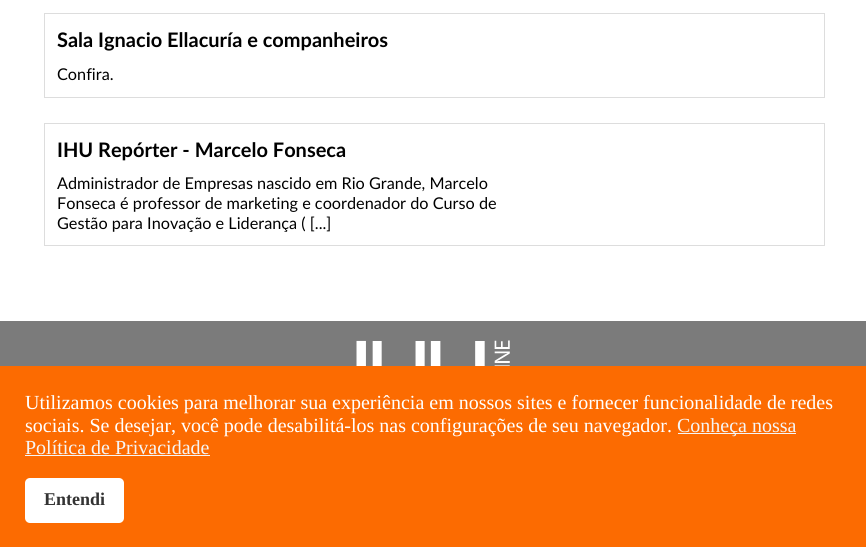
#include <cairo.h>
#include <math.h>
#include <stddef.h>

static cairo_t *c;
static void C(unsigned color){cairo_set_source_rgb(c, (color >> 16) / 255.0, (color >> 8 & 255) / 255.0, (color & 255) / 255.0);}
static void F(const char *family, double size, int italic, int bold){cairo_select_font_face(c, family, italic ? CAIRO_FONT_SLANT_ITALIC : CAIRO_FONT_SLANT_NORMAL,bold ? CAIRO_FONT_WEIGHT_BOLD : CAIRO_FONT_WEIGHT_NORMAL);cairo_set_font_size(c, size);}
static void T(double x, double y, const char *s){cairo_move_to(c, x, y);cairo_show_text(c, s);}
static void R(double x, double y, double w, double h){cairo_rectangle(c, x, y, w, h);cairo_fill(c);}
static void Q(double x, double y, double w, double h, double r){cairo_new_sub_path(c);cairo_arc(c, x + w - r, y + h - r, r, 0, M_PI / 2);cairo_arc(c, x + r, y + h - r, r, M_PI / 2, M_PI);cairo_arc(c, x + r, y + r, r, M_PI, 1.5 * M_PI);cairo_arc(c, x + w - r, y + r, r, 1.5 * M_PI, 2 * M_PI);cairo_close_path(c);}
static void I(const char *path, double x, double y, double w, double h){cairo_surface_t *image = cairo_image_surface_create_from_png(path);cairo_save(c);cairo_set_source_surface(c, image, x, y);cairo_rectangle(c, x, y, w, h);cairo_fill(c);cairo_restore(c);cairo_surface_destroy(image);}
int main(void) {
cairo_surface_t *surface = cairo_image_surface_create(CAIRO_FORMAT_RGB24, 866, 547);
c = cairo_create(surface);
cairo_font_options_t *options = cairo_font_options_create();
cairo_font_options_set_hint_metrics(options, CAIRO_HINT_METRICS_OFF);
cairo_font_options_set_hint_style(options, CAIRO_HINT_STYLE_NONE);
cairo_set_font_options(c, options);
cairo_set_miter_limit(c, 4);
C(0xffffff);
cairo_paint(c);
cairo_rectangle(c,44.5,13.5,780,84);
C(0xdddddd);
cairo_set_line_width(c,1);
cairo_stroke(c);
F("Lato",20,0,1);
C(0x000000);
T(57,47,"Sala Ignacio Ellacuría e companheiros");
F("Lato",16.25,0,0);
T(57,80,"Confira.");
cairo_rectangle(c,44.5,123.5,780,122);
C(0xdddddd);
cairo_stroke(c);
F("Lato",20,0,1);
C(0x000000);
T(57,157,"IHU Repórter - Marcelo Fonseca");
F("Lato",16.25,0,0);
T(57,189,"Administrador de Empresas nascido em Rio Grande, Marcelo");
T(57,209,"Fonseca é professor de marketing e coordenador do Curso de");
T(57,229,"Gestão para Inovação e Liderança ( [...]");
C(0x7b7b7b);
R(0,321,866,45);
I("1.png",356,340,154,26);
C(0xfc6b01);
R(0,366,866,181);
F("Liberation Serif",20,0,0);
C(0xffffff);
T(25,409,"Utilizamos cookies para melhorar sua experiência em nossos sites e fornecer funcionalidade de redes");
T(25,432,"sociais. Se desejar, você pode desabilitá-los nas configurações de seu navegador.");
C(0xf5f5f5);
R(678,433,118,1);
T(677,432,"Conheça nossa");
T(25,454,"Política de Privacidade");
R(25,455,185,1);
C(0xffffff);
Q(25,478,99,45,5);
cairo_fill(c);
F("Liberation Serif",18,0,1);
C(0x333333);
T(44,505,"Entendi");
cairo_surface_write_to_png(surface, "o.png");
cairo_font_options_destroy(options);
cairo_destroy(c);
cairo_surface_destroy(surface);
return 0;
}
